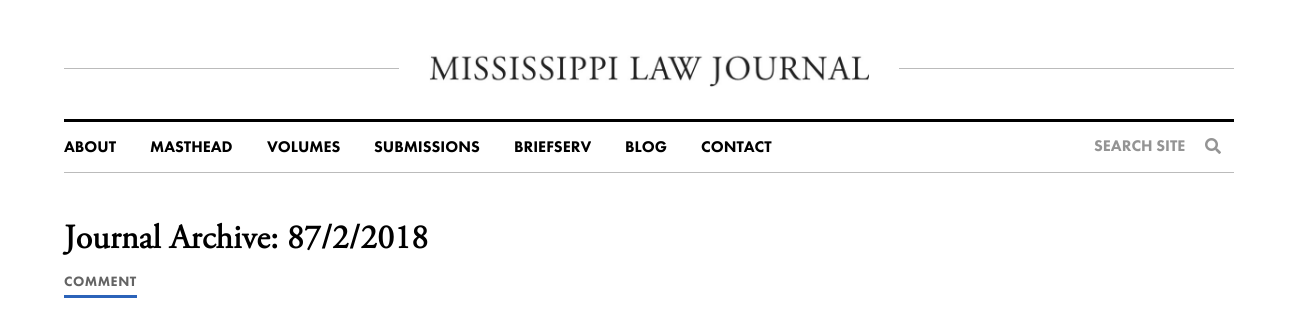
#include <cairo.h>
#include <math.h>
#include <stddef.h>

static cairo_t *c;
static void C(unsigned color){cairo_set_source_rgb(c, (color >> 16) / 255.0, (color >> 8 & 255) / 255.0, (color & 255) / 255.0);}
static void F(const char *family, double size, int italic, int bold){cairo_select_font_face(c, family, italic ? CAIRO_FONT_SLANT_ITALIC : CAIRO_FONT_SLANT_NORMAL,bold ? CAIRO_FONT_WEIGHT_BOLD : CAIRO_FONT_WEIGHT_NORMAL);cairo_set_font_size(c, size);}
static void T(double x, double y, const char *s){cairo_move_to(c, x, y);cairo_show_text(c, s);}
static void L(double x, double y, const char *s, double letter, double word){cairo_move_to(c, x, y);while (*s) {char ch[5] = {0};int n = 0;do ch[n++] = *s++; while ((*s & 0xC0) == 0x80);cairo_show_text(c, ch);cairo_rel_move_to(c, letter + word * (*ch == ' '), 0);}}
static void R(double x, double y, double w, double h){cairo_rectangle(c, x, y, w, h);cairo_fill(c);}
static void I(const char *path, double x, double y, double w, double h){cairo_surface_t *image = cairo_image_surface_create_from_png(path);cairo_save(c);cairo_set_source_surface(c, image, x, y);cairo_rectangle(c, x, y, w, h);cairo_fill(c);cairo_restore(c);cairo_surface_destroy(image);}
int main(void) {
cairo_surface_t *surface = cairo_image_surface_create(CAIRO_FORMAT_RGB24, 1298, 318);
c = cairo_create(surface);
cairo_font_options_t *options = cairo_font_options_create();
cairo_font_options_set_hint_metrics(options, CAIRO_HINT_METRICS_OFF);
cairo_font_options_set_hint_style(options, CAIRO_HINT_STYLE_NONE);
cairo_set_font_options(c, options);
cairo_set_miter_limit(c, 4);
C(0xffffff);
cairo_paint(c);
C(0xbbbbbb);
R(64,68,1170,1);
C(0xffffff);
R(399,68,500,1);
I("1.png",429,55,440,32);
C(0x000000);
R(64,119,1170,3);
C(0xbbbbbb);
R(64,172,1170,1);
F("Futura PT Black",16,0,0);
C(0x000000);
T(64,152,"ABOUT");
T(150,152,"MASTHEAD");
T(267,152,"VOLUMES");
T(374,152,"SUBMISSIONS");
T(514,152,"BRIEFSERV");
T(625,152,"BLOG");
T(701,152,"CONTACT");
C(0x949494);
T(1094,151,"SEARCH SITE");
I("2.png",1205,138,16,16);
F("Adobe Garamond",34,0,1);
C(0x000000);
T(64,248,"Journal Archive: 87/2/2018");
F("Futura PT Black",14,0,0);
C(0x646464);
L(64,286,"COMMENT",.5,0);
C(0x2b63b9);
R(64,295,73,3);
cairo_surface_write_to_png(surface, "o.png");
cairo_font_options_destroy(options);
cairo_destroy(c);
cairo_surface_destroy(surface);
return 0;
}
